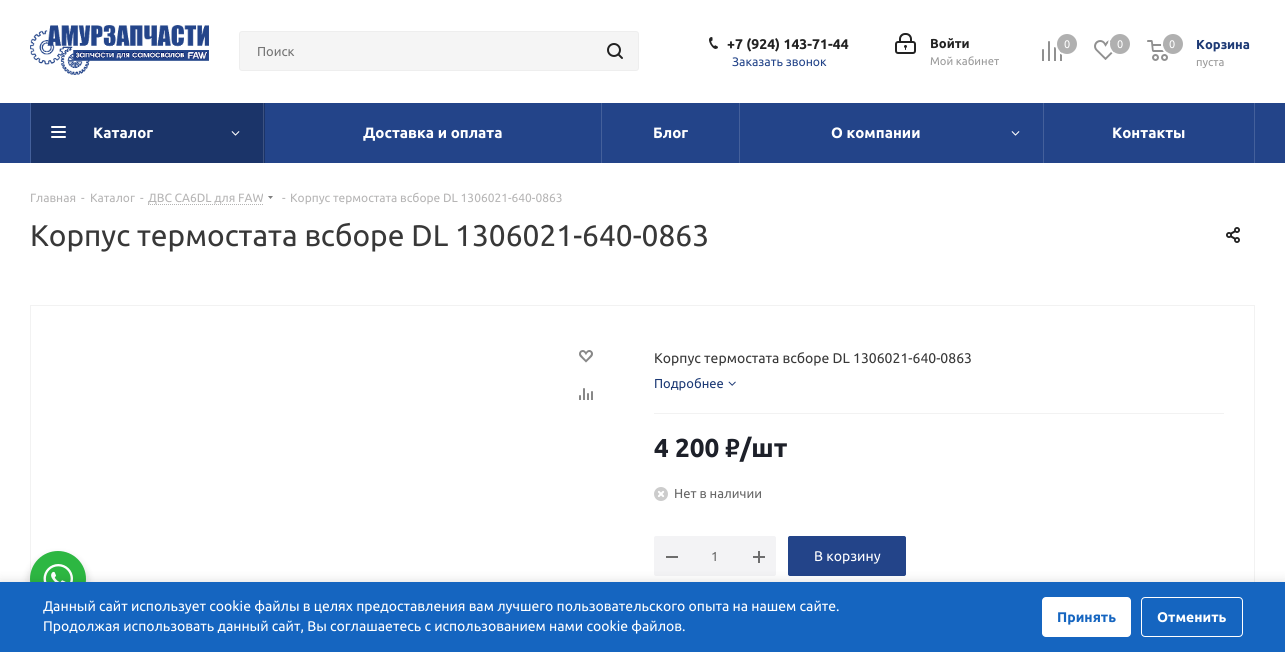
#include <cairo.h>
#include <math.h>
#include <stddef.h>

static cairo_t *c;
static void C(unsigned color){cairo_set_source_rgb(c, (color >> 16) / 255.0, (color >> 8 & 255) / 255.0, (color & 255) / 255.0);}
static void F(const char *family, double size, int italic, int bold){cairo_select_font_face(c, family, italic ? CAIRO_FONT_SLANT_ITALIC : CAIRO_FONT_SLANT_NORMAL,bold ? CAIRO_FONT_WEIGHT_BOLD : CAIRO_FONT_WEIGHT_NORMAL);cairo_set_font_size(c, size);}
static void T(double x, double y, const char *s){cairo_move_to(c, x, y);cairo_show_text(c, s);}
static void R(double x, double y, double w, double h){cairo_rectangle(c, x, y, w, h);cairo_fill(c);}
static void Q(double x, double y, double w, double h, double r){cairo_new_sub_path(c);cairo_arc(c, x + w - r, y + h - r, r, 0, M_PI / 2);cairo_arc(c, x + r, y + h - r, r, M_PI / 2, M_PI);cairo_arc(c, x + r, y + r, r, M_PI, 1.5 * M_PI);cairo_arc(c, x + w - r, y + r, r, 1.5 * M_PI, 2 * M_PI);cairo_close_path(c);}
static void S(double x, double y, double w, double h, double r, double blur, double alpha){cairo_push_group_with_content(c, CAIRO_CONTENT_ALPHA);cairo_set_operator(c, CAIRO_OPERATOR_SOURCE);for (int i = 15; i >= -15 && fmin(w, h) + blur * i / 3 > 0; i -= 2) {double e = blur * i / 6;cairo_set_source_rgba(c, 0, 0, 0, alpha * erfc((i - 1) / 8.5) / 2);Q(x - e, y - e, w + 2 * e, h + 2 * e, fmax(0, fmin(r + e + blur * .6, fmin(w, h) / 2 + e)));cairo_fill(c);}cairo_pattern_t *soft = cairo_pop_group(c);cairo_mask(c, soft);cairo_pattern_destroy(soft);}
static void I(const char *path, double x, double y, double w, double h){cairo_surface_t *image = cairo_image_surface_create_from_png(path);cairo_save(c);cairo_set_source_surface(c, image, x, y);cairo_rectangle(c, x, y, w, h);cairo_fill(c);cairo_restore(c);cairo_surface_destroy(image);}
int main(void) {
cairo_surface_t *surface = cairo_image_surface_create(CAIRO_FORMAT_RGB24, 1285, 652);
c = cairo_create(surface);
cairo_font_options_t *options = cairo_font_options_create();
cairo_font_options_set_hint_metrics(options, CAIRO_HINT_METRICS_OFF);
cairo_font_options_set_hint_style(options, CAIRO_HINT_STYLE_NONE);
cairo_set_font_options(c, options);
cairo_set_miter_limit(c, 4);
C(0xffffff);
cairo_paint(c);
I("1.png",30,25,179,50);
C(0xf5f5f5);
Q(239.5,31.5,399,39,2.5);
cairo_fill_preserve(c);
C(0xeeeeee);
cairo_set_line_width(c,1);
cairo_stroke(c);
F("Ubuntu",13,0,0);
C(0x757575);
T(257,56,"Поиск");
I("2.png",607,43,16,16);
I("3.png",709,37,9,12);
F("Ubuntu",14,0,1);
C(0x222222);
T(727,49,"+7 (924) 143-71-44");
F("Ubuntu",12.25,0,0);
C(0x234489);
T(732,66,"Заказать звонок");
I("4.png",895,33,21,21);
F("Ubuntu",13,0,1);
C(0x222222);
T(930,48,"Войти");
F("Ubuntu",11.25,0,0);
C(0x999999);
T(930,65,"Мой кабинет");
I("5.png",1042,41,20,20);
cairo_arc(c,1067,44,11,0,2 * M_PI);
C(0xffffff);
cairo_set_line_width(c,2);
cairo_stroke(c);
C(0xb0b0b0);
cairo_arc(c,1067,44,10,0,2 * M_PI);
cairo_fill(c);
F("Ubuntu",11,0,0);
C(0xffffff);
T(1064,48,"0");
I("6.png",1094,40,20,20);
cairo_arc(c,1120,44,11,0,2 * M_PI);
cairo_stroke(c);
C(0xb0b0b0);
cairo_arc(c,1120,44,10,0,2 * M_PI);
cairo_fill(c);
C(0xffffff);
T(1117,48,"0");
I("7.png",1147,40,21,21);
cairo_arc(c,1173,44,11,0,2 * M_PI);
cairo_stroke(c);
cairo_arc(c,1173,44,11,0,2 * M_PI);
cairo_stroke(c);
C(0xb0b0b0);
cairo_arc(c,1173,44,10,0,2 * M_PI);
cairo_fill(c);
C(0xffffff);
T(1169,48,"0");
F("Ubuntu",13,0,1);
C(0x1d3a75);
T(1196,49,"Корзина");
F("Ubuntu",11.25,0,0);
C(0x999999);
T(1196,66,"пуста");
C(0x234489);
R(0,103,1285,60);
C(0x44609b);
R(30,103,1,60);
C(0x1b3469);
R(31,103,234,60);
C(0x3d5280);
R(263,103,1,60);
I("8.png",51,126,15,12);
F("Ubuntu",15,0,1);
C(0xffffff);
T(93,138,"Каталог");
I("9.png",231,131,9,5);
C(0x44609b);
R(601,103,1,60);
C(0xffffff);
T(363,138,"Доставка и оплата");
C(0x44609b);
R(739,103,1,60);
C(0xffffff);
T(653,138,"Блог");
C(0x44609b);
R(1043,103,1,60);
C(0xffffff);
T(831,138,"О компании");
I("10.png",1011,131,9,5);
C(0x44609b);
R(1254,103,1,60);
C(0xffffff);
T(1112,138,"Контакты");
F("Ubuntu",12,0,0);
C(0xb6b5b5);
T(30,202,"Главная");
T(81,202,"-");
T(90,202,"Каталог");
T(140,202,"-");
cairo_new_path(c);
cairo_move_to(c,148,204.5);
cairo_line_to(c,264,204.5);
C(0xb4b4b4);
cairo_set_line_width(c,1);
cairo_set_dash(c,(double[]){1,1},2,0);
cairo_stroke(c);
C(0xb6b5b5);
T(148,202,"ДВС CA6DL для FAW");
I("11.png",268,196,5,3);
T(282,202,"-");
T(290,202,"Корпус термостата всборе DL 1306021-640-0863");
F("Ubuntu",29.9,0,0);
C(0x383838);
T(30,246,"Корпус термостата всборе DL 1306021-640-0863");
I("12.png",1226,227,14,16);
cairo_rectangle(c,30.5,305.5,1224,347);
C(0xf2f2f2);
cairo_set_dash(c,NULL,0,0);
cairo_stroke(c);
I("13.png",579,350,14,13);
I("14.png",579,388,14,12);
R(654,413,570,1);
F("Ubuntu",14,0,0);
C(0x383838);
T(654,363,"Корпус термостата всборе DL 1306021-640-0863");
F("Ubuntu",13,0,0);
C(0x1d3a75);
T(654,388,"Подробнее");
I("15.png",728,381,8,5);
F("Ubuntu",26,0,1);
C(0x1d2029);
T(654,457,"4 200");
F("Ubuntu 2",26,0,1);
T(725,457,"₽");
F("Ubuntu",26,0,1);
T(740,457,"/шт");
I("16.png",654,487,14,14);
F("Ubuntu",13,0,0);
C(0x666666);
T(674,498,"Нет в наличии");
C(0xf3f3f5);
Q(654,536,122,40,2);
cairo_fill(c);
C(0x6d6d6d);
R(666,556,12,2);
C(0x666666);
T(711,561,"1");
I("17.png",753,551,12,12);
C(0x234489);
Q(788.5,536.5,117,39,1.5);
cairo_fill_preserve(c);
cairo_stroke(c);
F("Ubuntu",14,0,0);
C(0xffffff);
T(814,561,"В корзину");
C(0x000000);
S(28,555,60,60,30,4,.14);
C(0x2db742);
cairo_arc(c,58,579,28,0,2 * M_PI);
cairo_fill(c);
I("18.png",43,564,30,18);
C(0x000000);
S(0,580,1285,70,0,5,.1);
C(0x1565c0);
R(0,582,1285,70);
C(0xffffff);
T(43,611,"Данный сайт использует cookie файлы в целях предоставления вам лучшего пользовательского опыта на нашем сайте.");
T(43,631,"Продолжая использовать данный сайт, Вы соглашаетесь с использованием нами cookie файлов.");
Q(1042,597,89,40,4);
cairo_fill(c);
F("Ubuntu",14,0,1);
C(0x1565c0);
T(1057,622,"Принять");
Q(1141.5,597.5,101,39,3.5);
C(0xffffff);
cairo_stroke(c);
T(1157,622,"Отменить");
cairo_surface_write_to_png(surface, "o.png");
cairo_font_options_destroy(options);
cairo_destroy(c);
cairo_surface_destroy(surface);
return 0;
}
